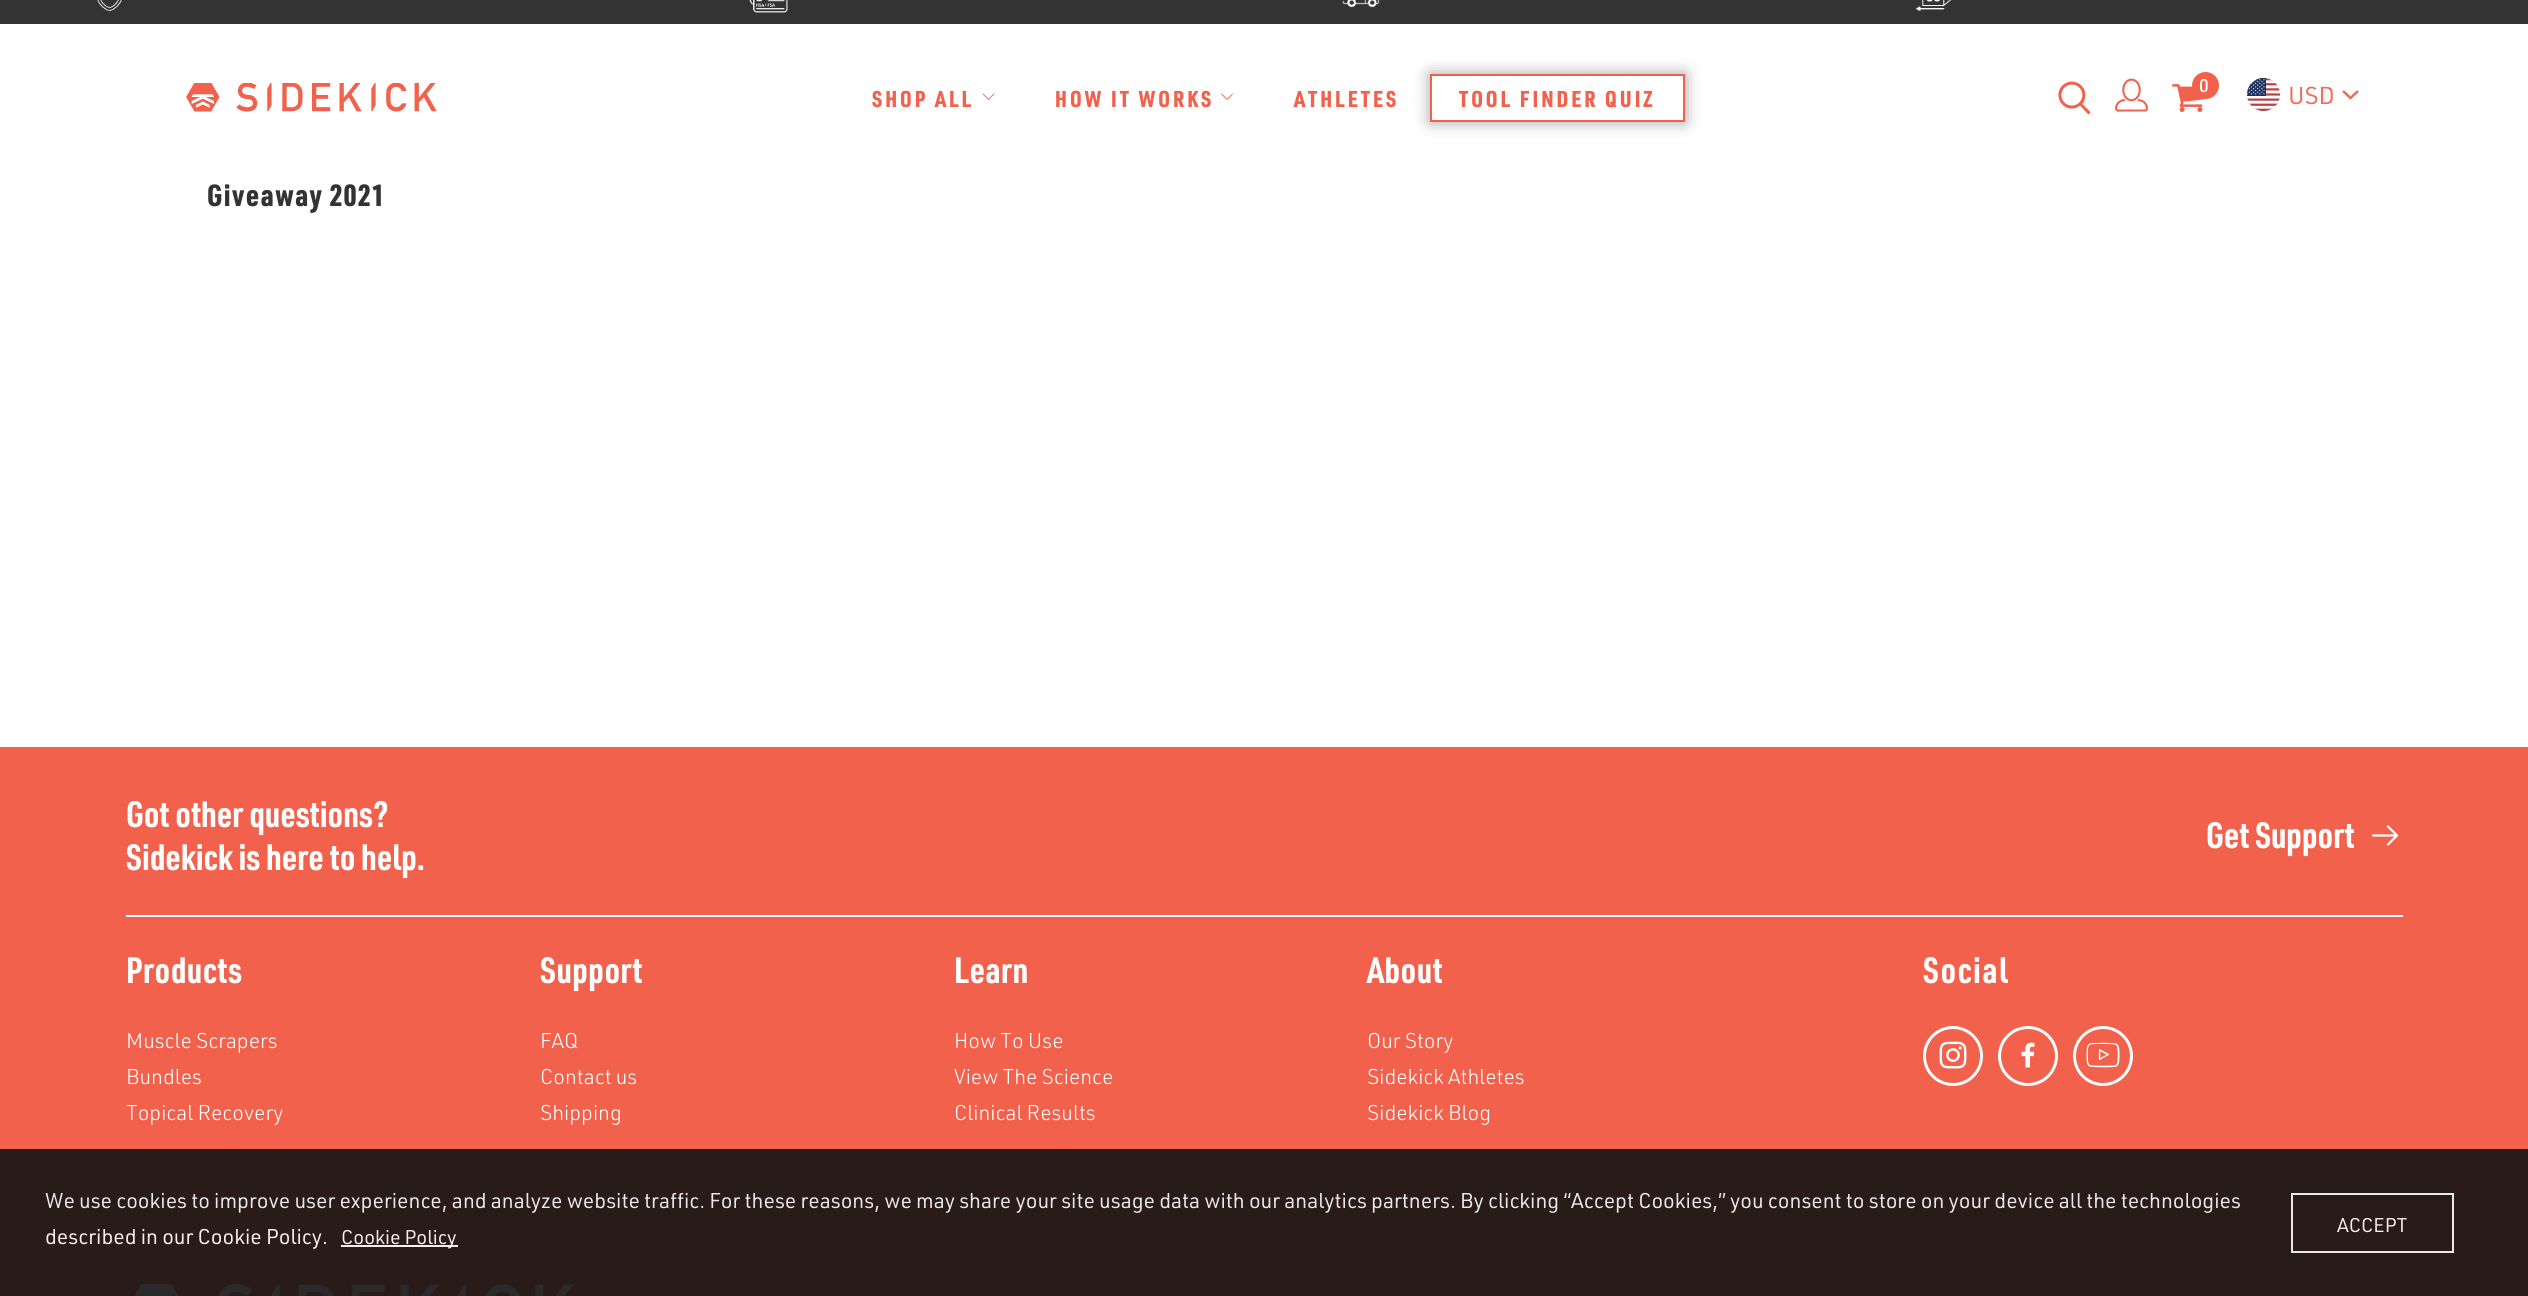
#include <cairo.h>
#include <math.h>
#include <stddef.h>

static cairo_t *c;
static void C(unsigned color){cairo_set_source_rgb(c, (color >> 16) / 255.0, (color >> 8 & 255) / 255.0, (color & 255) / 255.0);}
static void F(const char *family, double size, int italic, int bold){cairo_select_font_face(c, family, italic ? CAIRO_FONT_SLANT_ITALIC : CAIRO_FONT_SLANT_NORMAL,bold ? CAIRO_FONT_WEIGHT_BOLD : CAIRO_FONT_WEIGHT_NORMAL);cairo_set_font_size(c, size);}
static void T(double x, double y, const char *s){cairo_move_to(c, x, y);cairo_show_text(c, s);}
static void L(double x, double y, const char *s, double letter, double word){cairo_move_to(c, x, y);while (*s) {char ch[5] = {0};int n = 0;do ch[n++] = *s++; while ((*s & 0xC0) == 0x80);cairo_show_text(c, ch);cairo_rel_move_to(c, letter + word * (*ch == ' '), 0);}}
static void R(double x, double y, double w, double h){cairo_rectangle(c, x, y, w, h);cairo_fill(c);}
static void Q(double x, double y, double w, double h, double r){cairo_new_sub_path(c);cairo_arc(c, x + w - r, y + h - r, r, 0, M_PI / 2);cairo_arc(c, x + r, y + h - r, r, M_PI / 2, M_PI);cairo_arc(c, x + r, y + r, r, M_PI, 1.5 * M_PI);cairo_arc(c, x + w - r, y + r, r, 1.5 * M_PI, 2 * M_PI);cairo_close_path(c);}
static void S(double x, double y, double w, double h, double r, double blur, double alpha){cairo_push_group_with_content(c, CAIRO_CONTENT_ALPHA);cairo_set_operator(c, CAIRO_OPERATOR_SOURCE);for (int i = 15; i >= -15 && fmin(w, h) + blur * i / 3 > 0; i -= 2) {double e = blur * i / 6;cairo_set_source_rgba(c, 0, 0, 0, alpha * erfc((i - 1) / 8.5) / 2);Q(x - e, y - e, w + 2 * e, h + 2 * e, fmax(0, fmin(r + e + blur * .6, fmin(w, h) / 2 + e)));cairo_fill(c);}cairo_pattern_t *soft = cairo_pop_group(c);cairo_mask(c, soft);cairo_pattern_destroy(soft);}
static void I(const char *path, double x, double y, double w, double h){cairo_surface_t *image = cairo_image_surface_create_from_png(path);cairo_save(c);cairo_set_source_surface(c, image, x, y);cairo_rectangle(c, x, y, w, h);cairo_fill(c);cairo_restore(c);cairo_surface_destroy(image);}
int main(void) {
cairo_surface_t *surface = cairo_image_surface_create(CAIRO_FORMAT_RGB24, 2528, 1296);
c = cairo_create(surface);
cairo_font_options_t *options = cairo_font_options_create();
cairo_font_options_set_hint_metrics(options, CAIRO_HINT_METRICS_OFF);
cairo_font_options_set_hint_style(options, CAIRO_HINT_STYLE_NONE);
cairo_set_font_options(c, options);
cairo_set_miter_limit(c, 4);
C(0xffffff);
cairo_paint(c);
C(0x333333);
R(0,0,2528,24);
I("1.png",97,0,25,12);
I("2.png",749,0,39,13);
I("3.png",1342,0,38,8);
I("4.png",1916,0,36,12);
I("5.png",186,83,251,29);
F("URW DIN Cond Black",22.5,0,0);
C(0xf1614b);
L(872,107,"SHOP ALL",3,0);
I("6.png",982,93,13,7);
L(1055,107,"HOW IT WORKS",3,0);
I("7.png",1221,93,12,7);
L(1294,107,"ATHLETES",3,0);
cairo_save(c);
cairo_set_fill_rule(c,CAIRO_FILL_RULE_EVEN_ODD);
cairo_new_path(c);
cairo_move_to(c,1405,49);
cairo_line_to(c,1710,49);
cairo_line_to(c,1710,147);
cairo_line_to(c,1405,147);
cairo_close_path(c);
cairo_move_to(c,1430,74);
cairo_line_to(c,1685,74);
cairo_line_to(c,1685,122);
cairo_line_to(c,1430,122);
cairo_close_path(c);
cairo_clip(c);
C(0x000000);
S(1430,74,255,48,0,8,.37);
cairo_restore(c);
cairo_rectangle(c,1431,75,253,46);
cairo_stroke(c);
L(1459,107,"TOOL FINDER QUIZ",3,0);
I("8.png",2058,81,33,34);
I("9.png",2115,78,33,34);
I("10.png",2172,84,33,28);
cairo_arc(c,2205.5,85.5,13.5,0,2 * M_PI);
cairo_fill(c);
F("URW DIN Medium",18,0,0);
C(0xffffff);
T(2199,92,"0");
I("11.png",2247,78,33,33);
F("URW DIN",24,0,0);
C(0xf26a56);
T(2288,104,"USD");
cairo_new_path(c);
cairo_move_to(c,2343,91);
cairo_line_to(c,2350.5,98);
cairo_line_to(c,2358,91);
cairo_set_line_width(c,2.5);
cairo_stroke(c);
F("URW DIN Cond Black",30,0,0);
C(0x333333);
L(207,206,"Giveaway 2021",1.5,0);
C(0xf1614b);
R(0,747,2528,549);
F("URW DIN Cond",36,0,1);
C(0xffffff);
T(126,827,"Got other questions?");
T(126,870,"Sidekick is here to help.");
T(2206,848,"Get Support");
cairo_new_path(c);
cairo_move_to(c,2397,835.5);
cairo_line_to(c,2373,835.5);
cairo_move_to(c,2397,835.5);
cairo_line_to(c,2388,844.5);
cairo_move_to(c,2397,835.5);
cairo_line_to(c,2388,826.5);
cairo_set_line_width(c,2.2);
cairo_set_line_cap(c,CAIRO_LINE_CAP_ROUND);
cairo_set_line_join(c,CAIRO_LINE_JOIN_ROUND);
cairo_stroke(c);
R(126,915,2277,2);
L(126,983,"Products",.5,0);
F("URW DIN Light",21,0,0);
T(126,1048,"Muscle Scrapers");
T(126,1084,"Bundles");
T(126,1120,"Topical Recovery");
F("URW DIN Cond",36,0,1);
L(540,983,"Support",.5,0);
F("URW DIN Light",21,0,0);
T(540,1048,"FAQ");
T(540,1084,"Contact us");
T(540,1120,"Shipping");
F("URW DIN Cond",36,0,1);
L(954,983,"Learn",.5,0);
F("URW DIN Light",21,0,0);
T(954,1048,"How To Use");
T(954,1084,"View The Science");
T(954,1120,"Clinical Results");
F("URW DIN Cond",36,0,1);
L(1367,983,"About",.5,0);
F("URW DIN Light",21,0,0);
T(1367,1048,"Our Story");
T(1367,1084,"Sidekick Athletes");
T(1367,1120,"Sidekick Blog");
F("URW DIN Cond",36,0,1);
L(1923,983,"Social",1.5,0);
cairo_new_path(c);
cairo_arc(c,1953,1056,28.5,0,2 * M_PI);
cairo_set_line_width(c,3);
cairo_set_line_cap(c,CAIRO_LINE_CAP_BUTT);
cairo_set_line_join(c,CAIRO_LINE_JOIN_MITER);
cairo_stroke(c);
I("12.png",1939,1041,28,28);
cairo_arc(c,2028,1056,28.5,0,2 * M_PI);
cairo_stroke(c);
I("13.png",2021,1042,14,26);
cairo_arc(c,2103,1056,28.5,0,2 * M_PI);
cairo_stroke(c);
I("14.png",2086,1042,34,26);
I("15.png",134,1284,441,12);
cairo_set_source_rgba(c,0.078,0.078,0.078,0.9);
R(0,1149,2528,147);
F("URW DIN",21,0,0);
C(0xeae8e8);
T(45,1208,"We use cookies to improve user experience, and analyze website traffic. For these reasons, we may share your site usage data with our analytics partners. By clicking “Accept Cookies,” you consent to store on your device all the technologies");
C(0xfeefed);
T(45,1244,"described in our Cookie Policy.");
R(341,1245,117,2);
F("URW DIN",19.5,0,0);
T(341,1244,"Cookie Policy");
cairo_rectangle(c,2292,1194,161,58);
cairo_set_source_rgba(c,1,1,1,0.9);
cairo_set_line_width(c,2);
cairo_stroke(c);
C(0xfeefed);
T(2337,1232,"ACCEPT");
cairo_surface_write_to_png(surface, "o.png");
cairo_font_options_destroy(options);
cairo_destroy(c);
cairo_surface_destroy(surface);
return 0;
}
